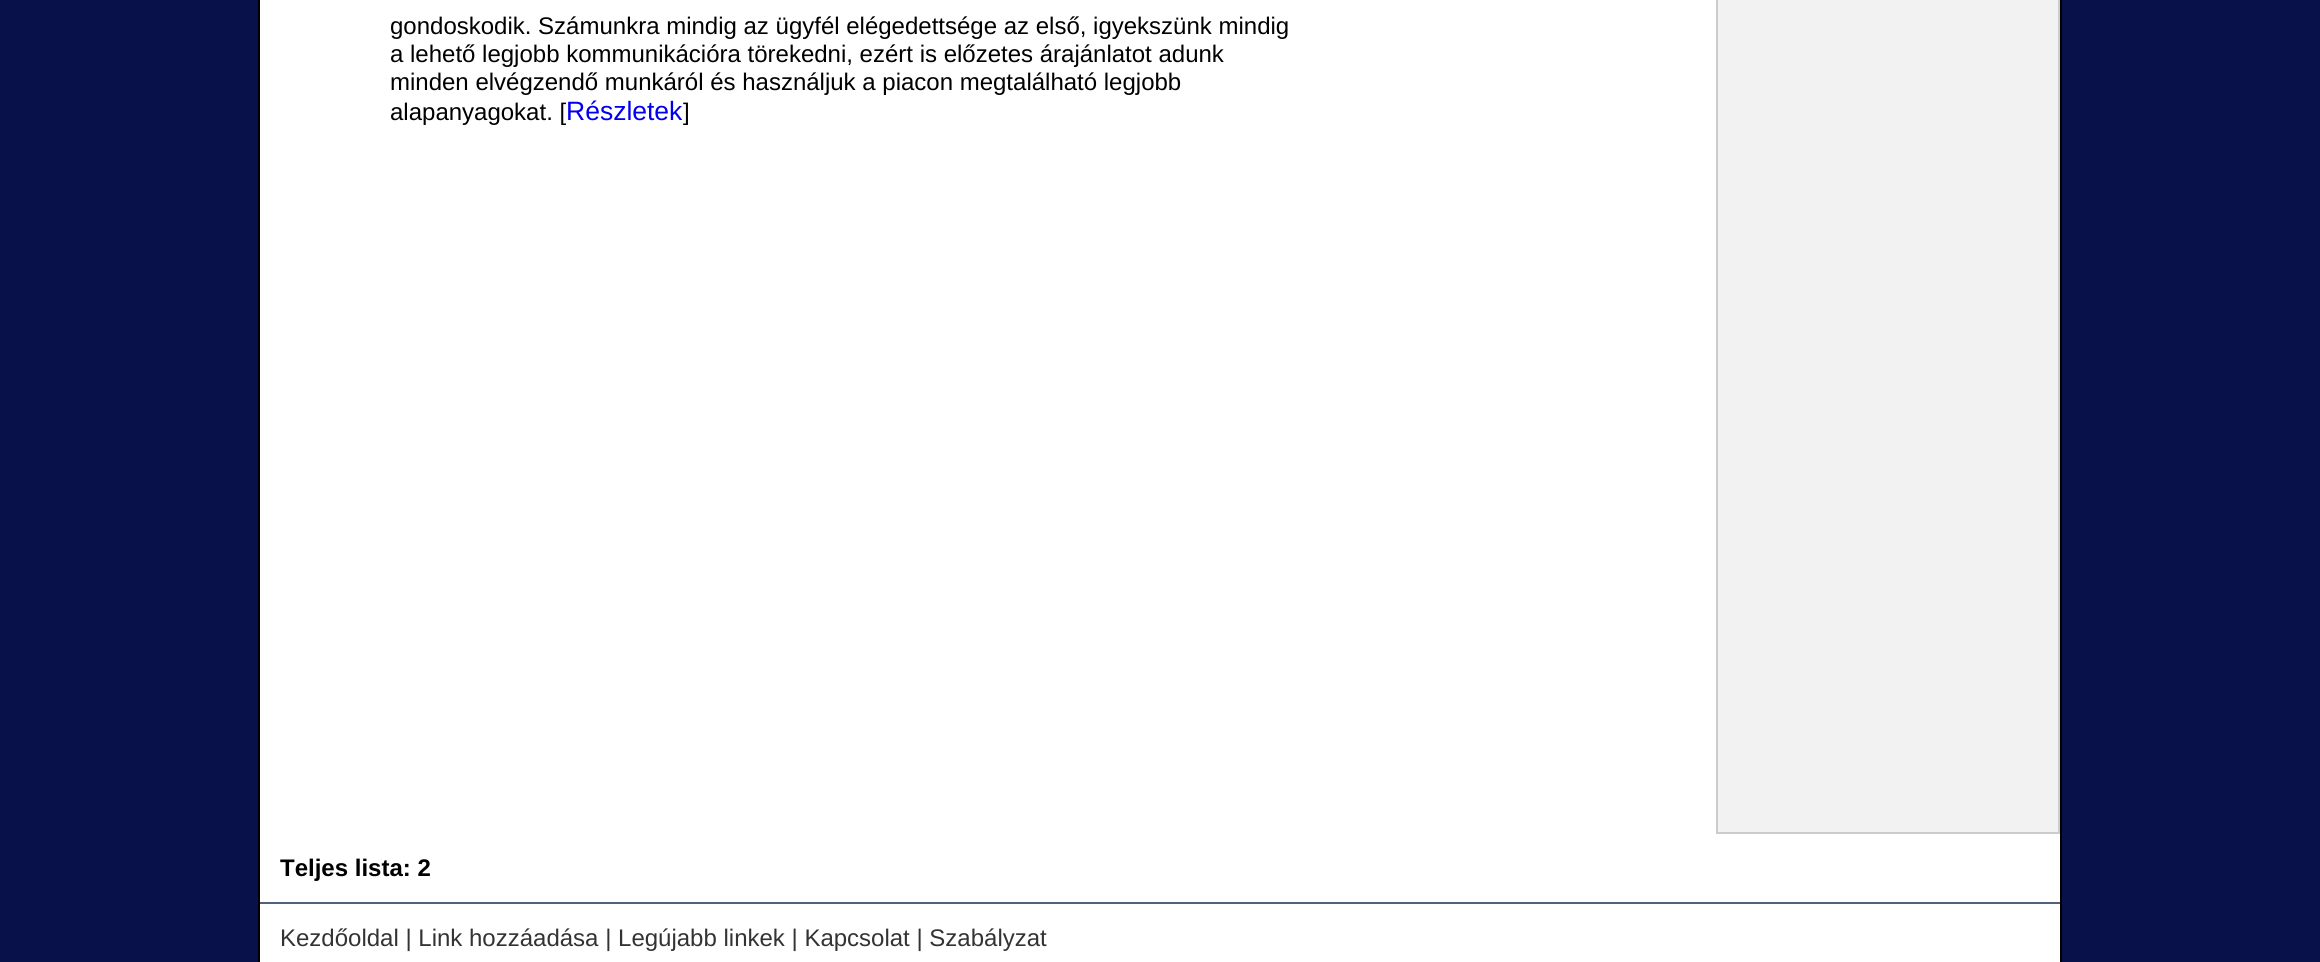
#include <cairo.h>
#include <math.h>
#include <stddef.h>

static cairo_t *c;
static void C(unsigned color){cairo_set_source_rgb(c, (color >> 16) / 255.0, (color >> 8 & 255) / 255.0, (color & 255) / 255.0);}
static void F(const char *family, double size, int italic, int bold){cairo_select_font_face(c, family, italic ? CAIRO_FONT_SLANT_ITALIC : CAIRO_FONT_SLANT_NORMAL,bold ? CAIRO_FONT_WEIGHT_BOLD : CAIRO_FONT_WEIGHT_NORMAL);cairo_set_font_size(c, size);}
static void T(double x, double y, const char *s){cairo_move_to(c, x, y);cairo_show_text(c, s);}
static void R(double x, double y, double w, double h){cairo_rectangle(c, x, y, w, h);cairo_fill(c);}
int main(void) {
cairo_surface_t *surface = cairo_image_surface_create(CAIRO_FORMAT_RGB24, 2320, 962);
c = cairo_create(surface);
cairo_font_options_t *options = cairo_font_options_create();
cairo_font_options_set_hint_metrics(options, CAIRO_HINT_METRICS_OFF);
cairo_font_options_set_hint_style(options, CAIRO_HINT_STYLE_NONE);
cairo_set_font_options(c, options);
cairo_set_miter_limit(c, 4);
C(0x081149);
cairo_paint(c);
C(0xffffff);
cairo_rectangle(c,259,-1,1802,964);
cairo_fill_preserve(c);
C(0x000000);
cairo_stroke(c);
F("Liberation Sans",24,0,0);
T(390,34,"gondoskodik. Számunkra mindig az ügyfél elégedettsége az első, igyekszünk mindig");
T(390,62,"a lehető legjobb kommunikációra törekedni, ezért is előzetes árajánlatot adunk");
T(390,90,"minden elvégzendő munkáról és használjuk a piacon megtalálható legjobb");
T(390,120,"alapanyagokat. [");
F("Liberation Sans",26.5,0,0);
C(0x0000ee);
T(566,120,"Részletek");
F("Liberation Sans",24,0,0);
C(0x000000);
T(683,120,"]");
C(0xf2f2f2);
cairo_rectangle(c,1717,-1,342,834);
cairo_fill_preserve(c);
C(0xcccccc);
cairo_stroke(c);
F("Liberation Sans",24,0,1);
C(0x000000);
T(280,876,"Teljes lista: 2");
C(0x4e637b);
R(260,902,1800,2);
F("Liberation Sans",24,0,0);
C(0x333333);
T(280,946,"Kezdőoldal | Link hozzáadása | Legújabb linkek | Kapcsolat | Szabályzat");
cairo_surface_write_to_png(surface, "o.png");
cairo_font_options_destroy(options);
cairo_destroy(c);
cairo_surface_destroy(surface);
return 0;
}
